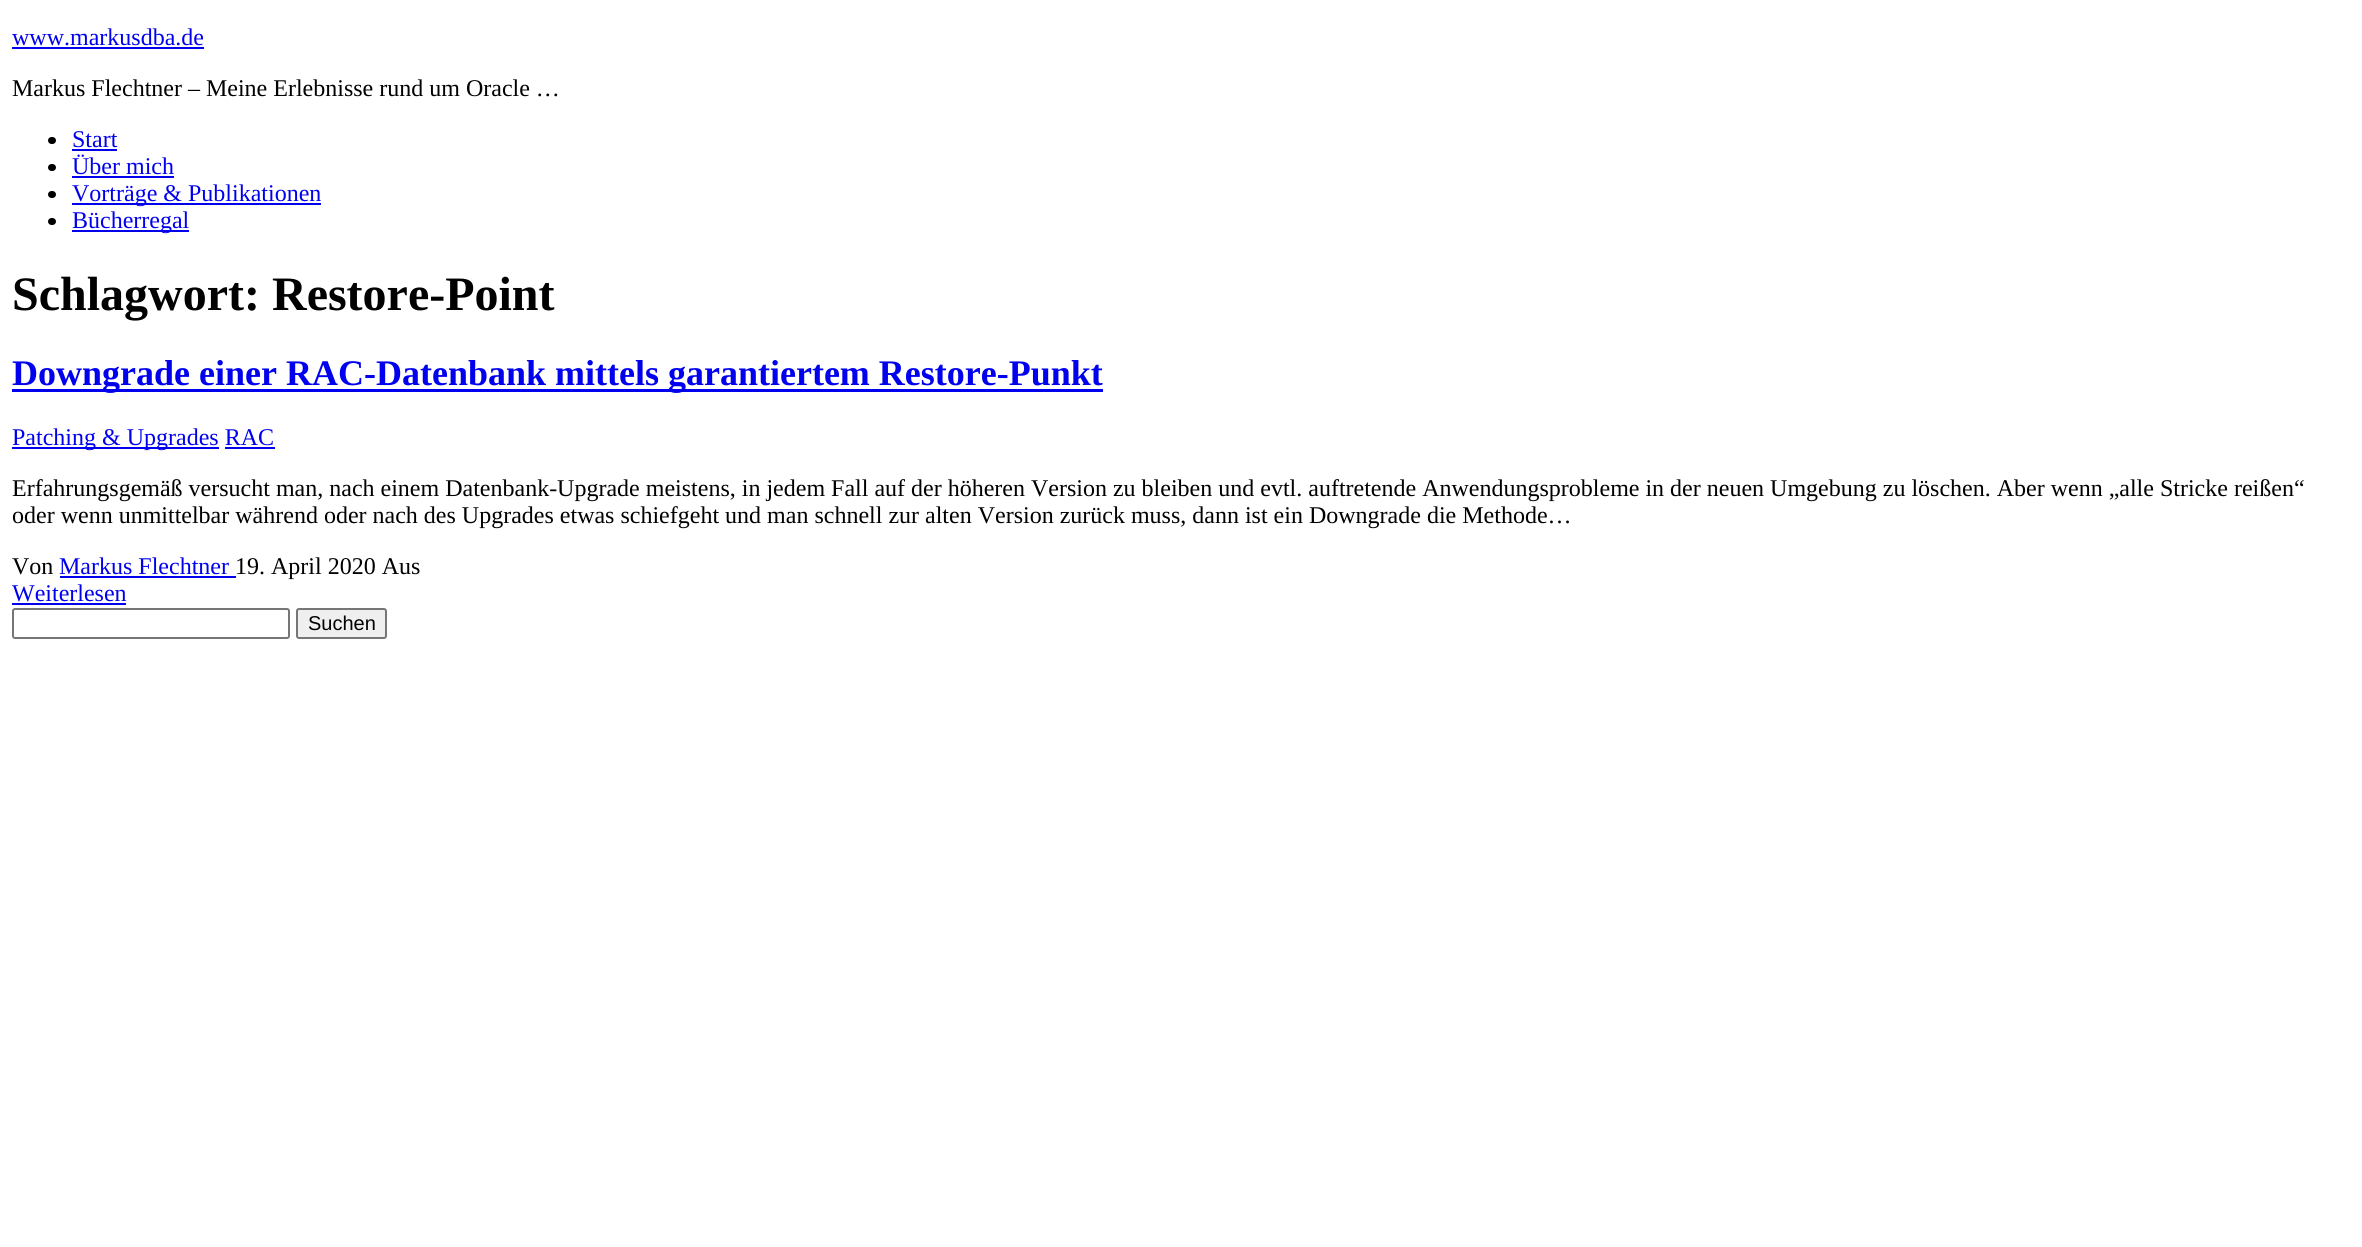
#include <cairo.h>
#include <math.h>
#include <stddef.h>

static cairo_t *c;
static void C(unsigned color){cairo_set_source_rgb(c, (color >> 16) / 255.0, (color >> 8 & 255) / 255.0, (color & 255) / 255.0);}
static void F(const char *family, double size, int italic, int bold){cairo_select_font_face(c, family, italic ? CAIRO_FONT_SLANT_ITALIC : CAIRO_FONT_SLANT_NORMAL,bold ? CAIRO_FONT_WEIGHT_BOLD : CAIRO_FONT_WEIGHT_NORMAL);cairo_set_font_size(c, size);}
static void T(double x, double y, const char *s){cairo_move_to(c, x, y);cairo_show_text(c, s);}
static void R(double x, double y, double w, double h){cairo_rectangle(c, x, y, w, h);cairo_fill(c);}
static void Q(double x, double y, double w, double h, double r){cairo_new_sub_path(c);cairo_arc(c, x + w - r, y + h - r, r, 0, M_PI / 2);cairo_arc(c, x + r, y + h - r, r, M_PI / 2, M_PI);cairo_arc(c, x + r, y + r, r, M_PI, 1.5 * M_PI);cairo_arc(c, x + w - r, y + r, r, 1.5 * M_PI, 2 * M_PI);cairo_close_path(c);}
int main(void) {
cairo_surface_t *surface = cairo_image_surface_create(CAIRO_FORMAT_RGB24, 2362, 1247);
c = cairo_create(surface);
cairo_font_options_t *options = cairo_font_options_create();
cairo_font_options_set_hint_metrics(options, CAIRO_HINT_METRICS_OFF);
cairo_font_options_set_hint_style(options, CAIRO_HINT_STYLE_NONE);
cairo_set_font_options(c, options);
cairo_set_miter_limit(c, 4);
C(0xffffff);
cairo_paint(c);
F("Liberation Serif",24,0,0);
C(0x0000ee);
T(12,45,"www.markusdba.de");
R(12,47,192,2);
C(0x000000);
T(12,96,"Markus Flechtner – Meine Erlebnisse rund um Oracle …");
Q(48,137,8,7,3.5);
cairo_fill(c);
C(0x0000ee);
T(72,147,"Start");
R(72,149,45,2);
C(0x000000);
Q(48,164,8,7,3.5);
cairo_fill(c);
C(0x0000ee);
T(72,174,"Über mich");
R(72,176,102,2);
C(0x000000);
Q(48,191,8,7,3.5);
cairo_fill(c);
C(0x0000ee);
R(72,203,249,2);
T(72,201,"Vorträge & Publikationen");
C(0x000000);
Q(48,218,8,7,3.5);
cairo_fill(c);
C(0x0000ee);
R(72,230,117,2);
T(72,228,"Bücherregal");
F("Liberation Serif",48,0,1);
C(0x000000);
T(12,310,"Schlagwort: Restore-Point");
C(0x0000ee);
R(12,389,1091,3);
F("Liberation Serif",36,0,1);
T(12,385,"Downgrade einer RAC-Datenbank mittels garantiertem Restore-Punkt");
R(12,447,207,2);
F("Liberation Serif",24,0,0);
T(12,445,"Patching & Upgrades RAC");
R(225,447,50,2);
C(0x000000);
T(12,496,"Erfahrungsgemäß versucht man, nach einem Datenbank-Upgrade meistens, in jedem Fall auf der höheren Version zu bleiben und evtl. auftretende Anwendungsprobleme in der neuen Umgebung zu löschen. Aber wenn „alle Stricke reißen“");
T(12,523,"oder wenn unmittelbar während oder nach des Upgrades etwas schiefgeht und man schnell zur alten Version zurück muss, dann ist ein Downgrade die Methode…");
T(12,574,"Von");
C(0x0000ee);
T(59,574,"Markus Flechtner");
R(60,576,176,2);
C(0x000000);
T(235,574,"19. April 2020 Aus");
C(0x0000ee);
T(12,601,"Weiterlesen");
R(12,603,114,2);
Q(13,609,276,29,2);
C(0x767676);
cairo_stroke(c);
C(0xefefef);
Q(297,609,89,29,2);
cairo_fill_preserve(c);
C(0x767676);
cairo_stroke(c);
F("Liberation Sans",20,0,0);
C(0x000000);
T(308,630,"Suchen");
cairo_surface_write_to_png(surface, "o.png");
cairo_font_options_destroy(options);
cairo_destroy(c);
cairo_surface_destroy(surface);
return 0;
}
